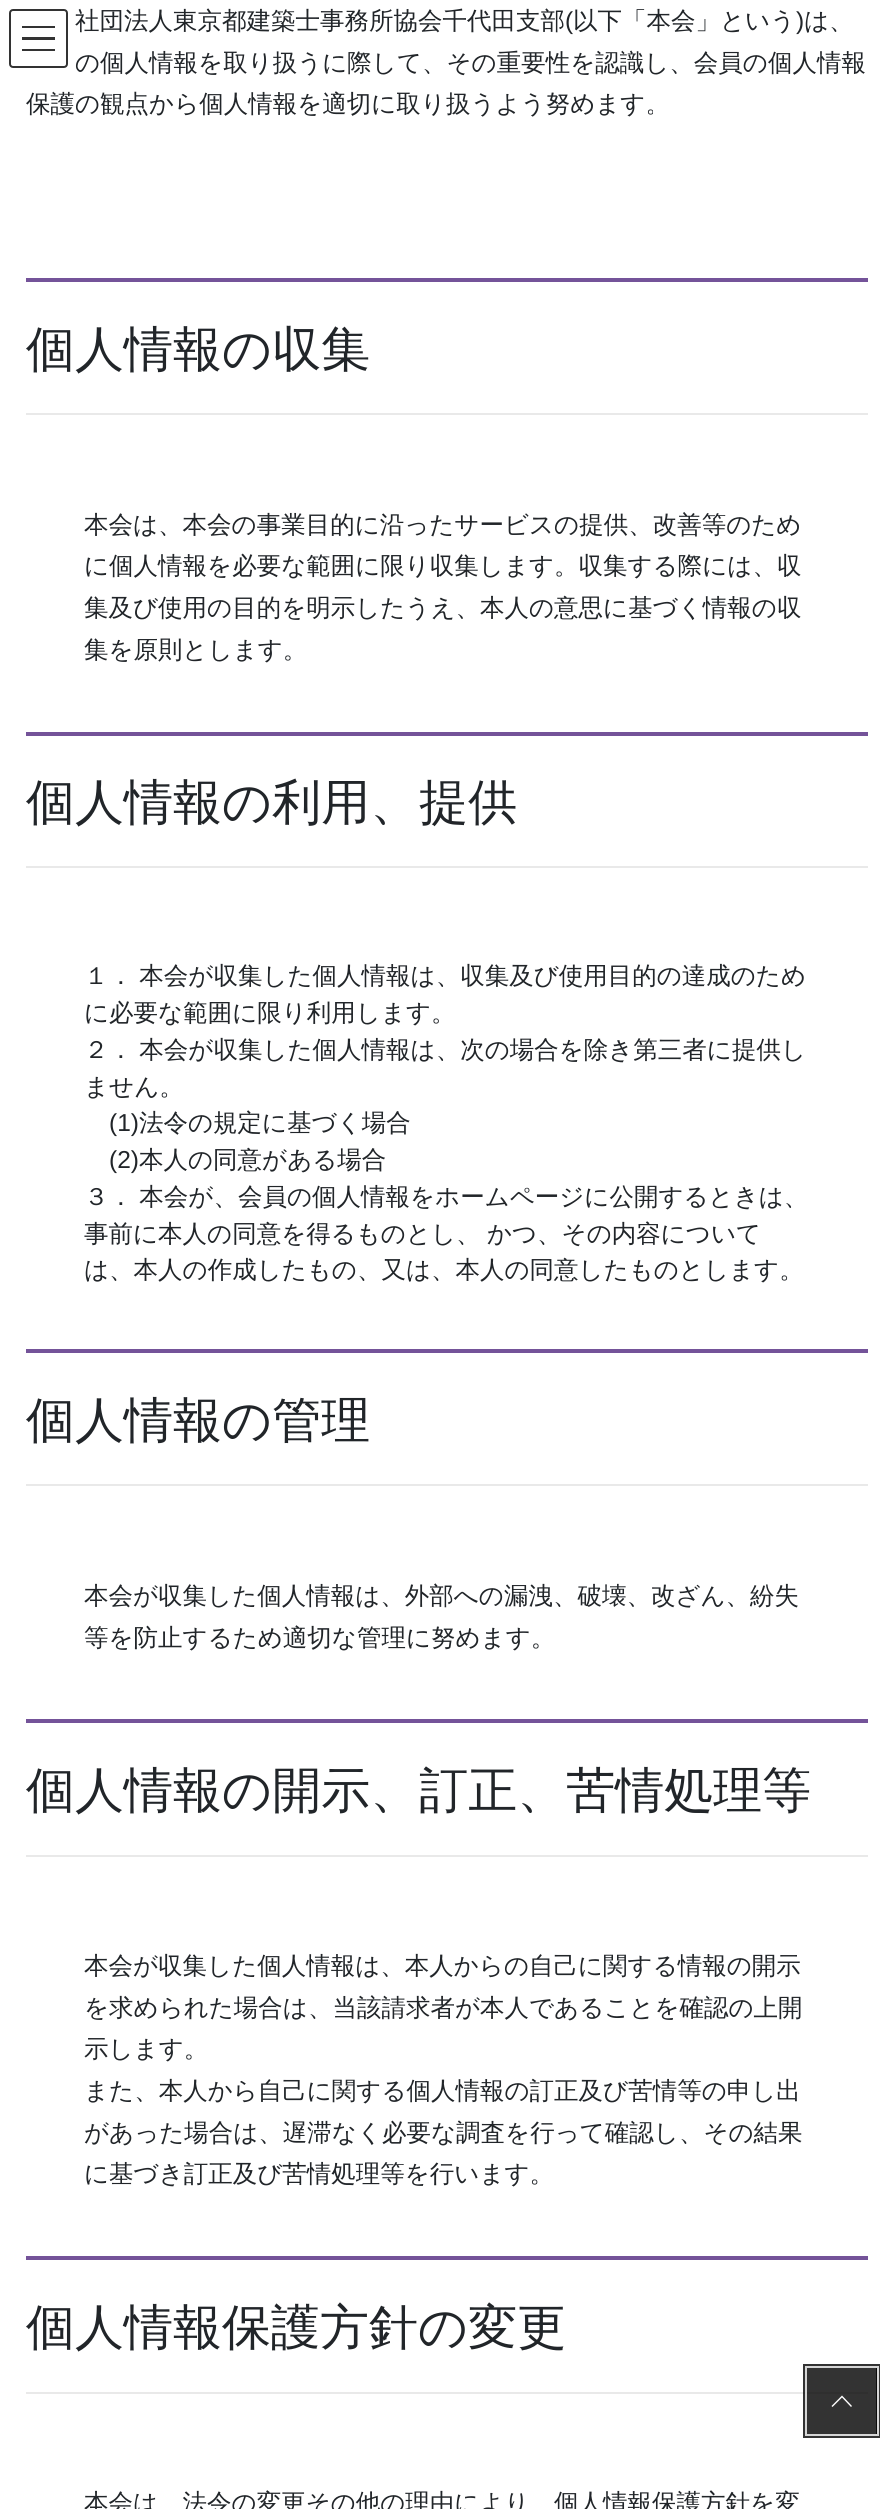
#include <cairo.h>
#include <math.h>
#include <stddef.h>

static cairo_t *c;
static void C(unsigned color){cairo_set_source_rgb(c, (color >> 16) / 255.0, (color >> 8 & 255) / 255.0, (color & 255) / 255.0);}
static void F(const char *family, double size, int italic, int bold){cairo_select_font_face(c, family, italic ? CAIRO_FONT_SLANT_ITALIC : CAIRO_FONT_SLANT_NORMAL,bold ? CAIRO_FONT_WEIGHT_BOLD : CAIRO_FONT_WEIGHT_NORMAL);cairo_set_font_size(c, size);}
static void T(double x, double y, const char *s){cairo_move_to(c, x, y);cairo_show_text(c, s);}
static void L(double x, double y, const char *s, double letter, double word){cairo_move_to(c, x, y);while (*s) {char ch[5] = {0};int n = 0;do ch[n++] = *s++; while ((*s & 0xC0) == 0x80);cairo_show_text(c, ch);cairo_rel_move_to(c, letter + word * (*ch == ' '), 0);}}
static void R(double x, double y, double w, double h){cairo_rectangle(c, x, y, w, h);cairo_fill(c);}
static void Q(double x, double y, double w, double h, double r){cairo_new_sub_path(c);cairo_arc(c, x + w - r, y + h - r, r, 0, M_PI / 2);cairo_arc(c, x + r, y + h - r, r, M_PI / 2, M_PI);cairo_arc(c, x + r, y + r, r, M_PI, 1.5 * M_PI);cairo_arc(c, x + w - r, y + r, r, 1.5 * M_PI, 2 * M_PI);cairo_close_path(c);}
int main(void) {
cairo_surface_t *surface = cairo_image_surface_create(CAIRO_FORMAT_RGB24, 893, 2509);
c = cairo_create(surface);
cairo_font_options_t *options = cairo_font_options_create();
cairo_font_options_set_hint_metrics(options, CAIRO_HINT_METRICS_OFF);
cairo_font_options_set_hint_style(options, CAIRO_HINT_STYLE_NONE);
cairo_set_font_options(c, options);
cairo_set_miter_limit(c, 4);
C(0xffffff);
cairo_paint(c);
F("WenQuanYi Zen Hei Medium",24.5,0,0);
C(0x212529);
T(75,29,"社団法人東京都建築士事務所協会千代田支部");
F("Liberation Sans",24.5,0,0);
T(565,29,"(");
F("WenQuanYi Zen Hei Medium",24.5,0,0);
T(573,29,"以下「本会」という");
F("Liberation Sans",24.5,0,0);
T(796,29,")");
F("WenQuanYi Zen Hei Medium",24.5,0,0);
T(804,29,"は、");
T(75,71,"の個人情報を取り扱うに際して、その重要性を認識し、会員の個人情報");
T(26,112,"保護の観点から個人情報を適切に取り扱うよう努めます。");
C(0x745399);
R(26,278,842,4);
C(0xe9e9e9);
R(26,413,842,2);
F("WenQuanYi Zen Hei Medium",49,0,0);
C(0x212529);
T(26,366,"個人情報の収集");
F("WenQuanYi Zen Hei Medium",24.5,0,0);
T(84,533,"本会は、本会の事業目的に沿ったサービスの提供、改善等のため");
T(84,574,"に個人情報を必要な範囲に限り収集します。収集する際には、収");
T(84,616,"集及び使用の目的を明示したうえ、本人の意思に基づく情報の収");
T(84,658,"集を原則とします。");
C(0x745399);
R(26,732,842,4);
C(0xe9e9e9);
R(26,866,842,2);
F("WenQuanYi Zen Hei Medium",49,0,0);
C(0x212529);
T(26,819,"個人情報の利用、提供");
F("WenQuanYi Zen Hei Medium",24.5,0,0);
L(84,984,"１． 本会が収集した個人情報は、収集及び使用目的の達成のため",0,-1);
T(84,1021,"に必要な範囲に限り利用します。");
L(84,1058,"２． 本会が収集した個人情報は、次の場合を除き第三者に提供し",0,-1);
T(84,1095,"ません。");
F("Liberation Sans",24.5,0,0);
T(109,1131,"(1)");
F("WenQuanYi Zen Hei Medium",24.5,0,0);
T(139,1131,"法令の規定に基づく場合");
F("Liberation Sans",24.5,0,0);
T(109,1168,"(2)");
F("WenQuanYi Zen Hei Medium",24.5,0,0);
T(139,1168,"本人の同意がある場合");
L(84,1205,"３． 本会が、会員の個人情報をホームページに公開するときは、",0,-1);
L(84,1242,"事前に本人の同意を得るものとし、 かつ、その内容について",0,-1);
T(84,1278,"は、本人の作成したもの、又は、本人の同意したものとします。");
C(0x745399);
R(26,1349,842,4);
C(0xe9e9e9);
R(26,1484,842,2);
F("WenQuanYi Zen Hei Medium",49,0,0);
C(0x212529);
T(26,1437,"個人情報の管理");
F("WenQuanYi Zen Hei Medium",24.5,0,0);
T(84,1604,"本会が収集した個人情報は、外部への漏洩、破壊、改ざん、紛失");
T(84,1646,"等を防止するため適切な管理に努めます。");
C(0x745399);
R(26,1719,842,4);
C(0xe9e9e9);
R(26,1855,842,2);
F("WenQuanYi Zen Hei Medium",49,0,0);
C(0x212529);
T(26,1807,"個人情報の開示、訂正、苦情処理等");
F("WenQuanYi Zen Hei Medium",24.5,0,0);
T(84,1974,"本会が収集した個人情報は、本人からの自己に関する情報の開示");
T(84,2016,"を求められた場合は、当該請求者が本人であることを確認の上開");
T(84,2057,"示します。");
T(84,2099,"また、本人から自己に関する個人情報の訂正及び苦情等の申し出");
T(84,2141,"があった場合は、遅滞なく必要な調査を行って確認し、その結果");
T(84,2182,"に基づき訂正及び苦情処理等を行います。");
C(0x745399);
R(26,2256,842,4);
C(0xe9e9e9);
R(26,2392,842,2);
F("WenQuanYi Zen Hei Medium",49,0,0);
C(0x212529);
T(26,2344,"個人情報保護方針の変更");
F("WenQuanYi Zen Hei Medium",24.5,0,0);
T(84,2511,"本会は、法令の変更その他の理由により、個人情報保護方針を変");
cairo_set_source_rgba(c,0,0,0,0.8);
R(22,26,33,2);
C(0x333333);
R(22,37,33,3);
R(22,49,33,2);
Q(10,10,57,57,3);
cairo_stroke(c);
cairo_rectangle(c,805,2366,73,70);
cairo_set_source_rgba(c,0,0,0,0.8);
cairo_set_line_width(c,4);
cairo_stroke(c);
cairo_rectangle(c,806,2367,72,68);
cairo_set_source_rgba(c,1,1,1,0.8);
cairo_set_line_width(c,2);
cairo_stroke(c);
cairo_set_source_rgba(c,0,0,0,0.8);
R(807,2368,70,66);
C(0xffffff);
cairo_new_path(c);
cairo_move_to(c,852,2406);
cairo_line_to(c,851,2407);
cairo_line_to(c,842,2397.5);
cairo_line_to(c,832.5,2407);
cairo_line_to(c,831.5,2406);
cairo_line_to(c,842,2395.5);
cairo_close_path(c);
cairo_fill(c);
cairo_surface_write_to_png(surface, "o.png");
cairo_font_options_destroy(options);
cairo_destroy(c);
cairo_surface_destroy(surface);
return 0;
}
